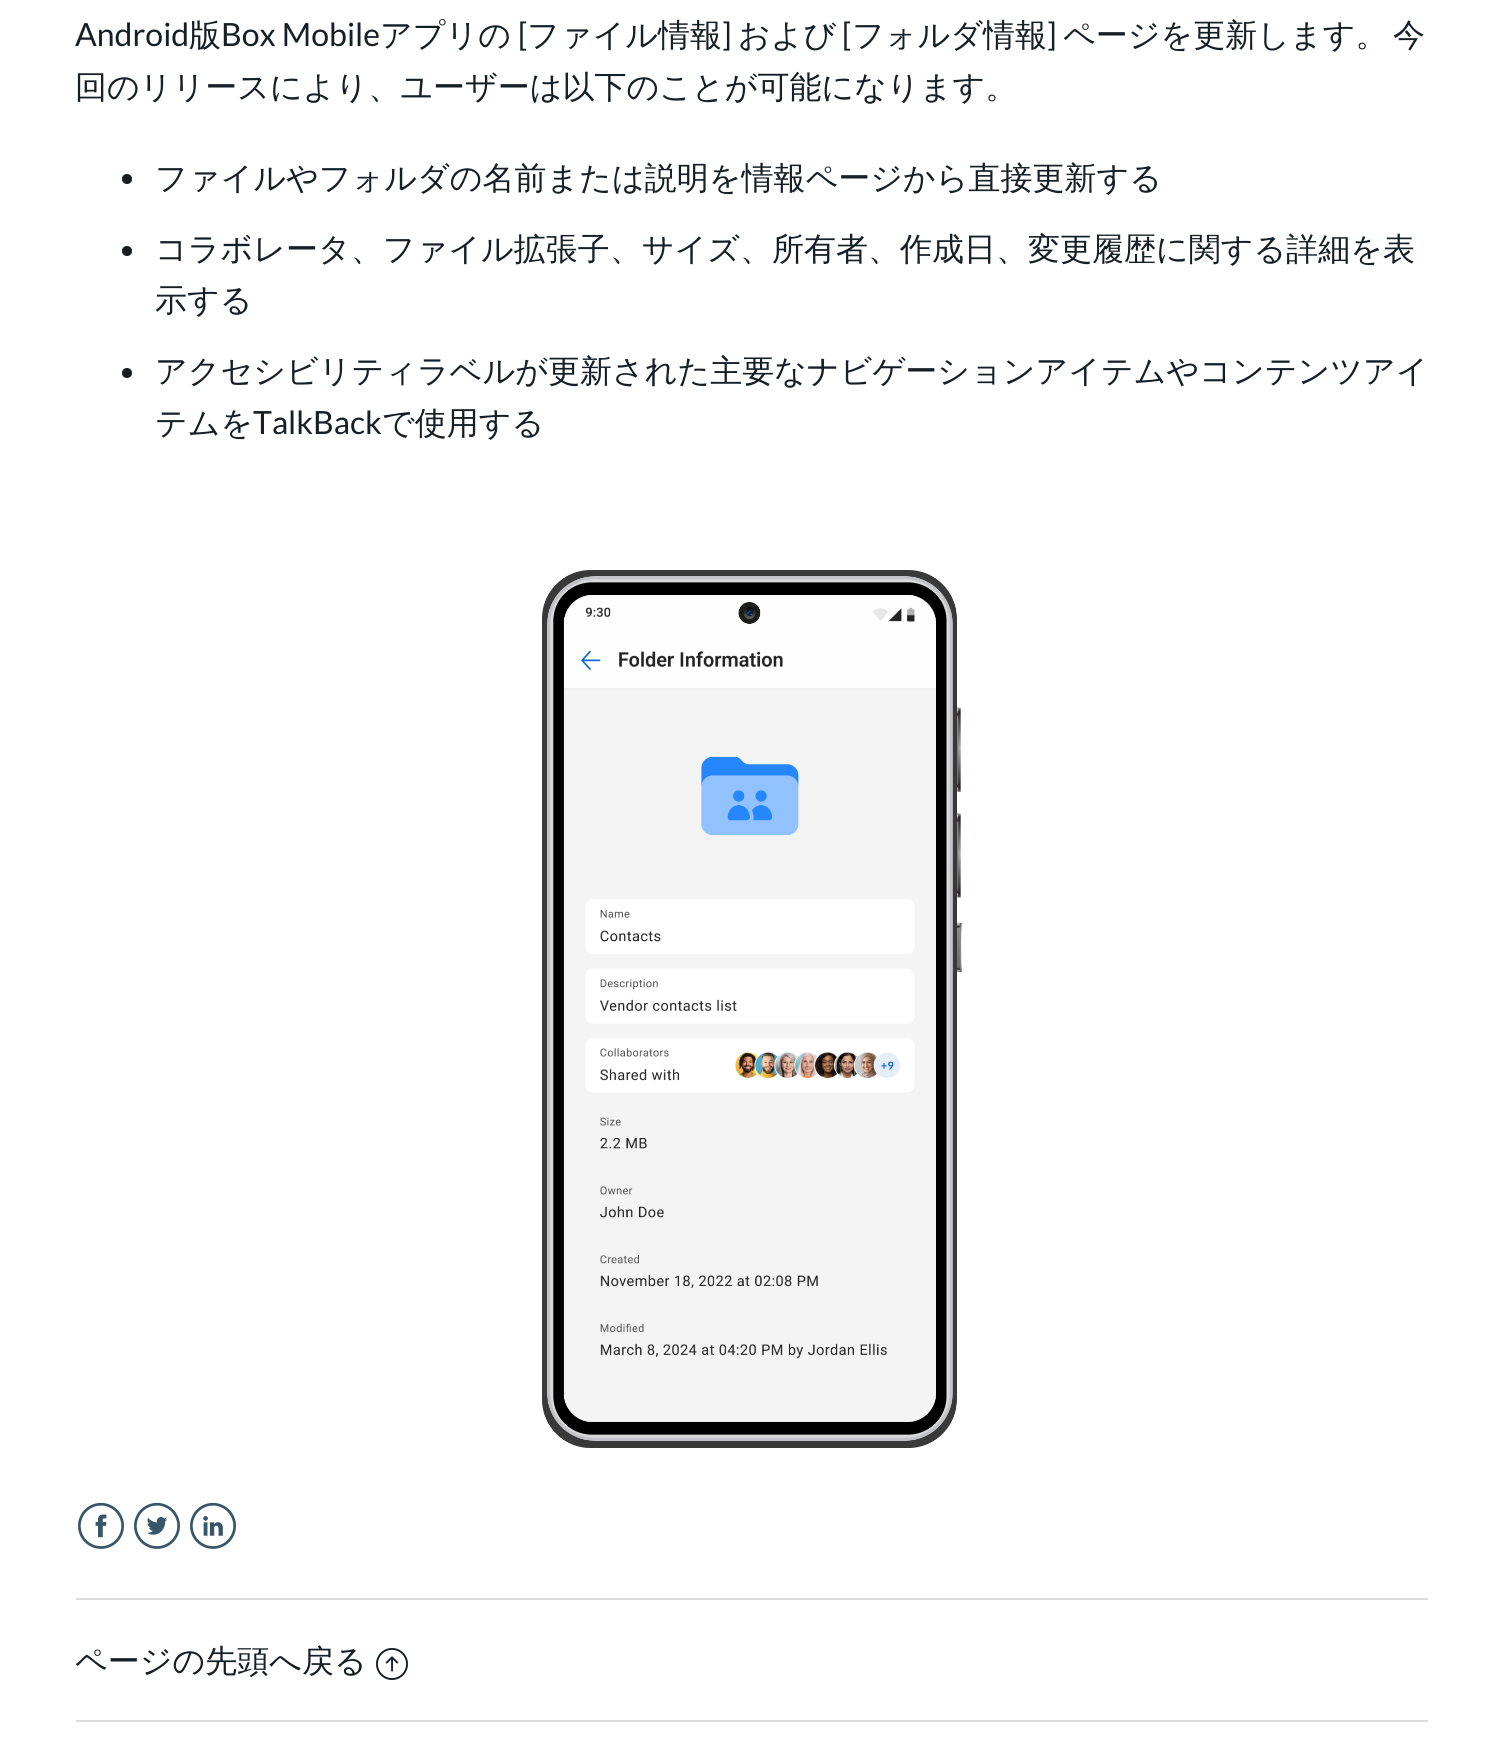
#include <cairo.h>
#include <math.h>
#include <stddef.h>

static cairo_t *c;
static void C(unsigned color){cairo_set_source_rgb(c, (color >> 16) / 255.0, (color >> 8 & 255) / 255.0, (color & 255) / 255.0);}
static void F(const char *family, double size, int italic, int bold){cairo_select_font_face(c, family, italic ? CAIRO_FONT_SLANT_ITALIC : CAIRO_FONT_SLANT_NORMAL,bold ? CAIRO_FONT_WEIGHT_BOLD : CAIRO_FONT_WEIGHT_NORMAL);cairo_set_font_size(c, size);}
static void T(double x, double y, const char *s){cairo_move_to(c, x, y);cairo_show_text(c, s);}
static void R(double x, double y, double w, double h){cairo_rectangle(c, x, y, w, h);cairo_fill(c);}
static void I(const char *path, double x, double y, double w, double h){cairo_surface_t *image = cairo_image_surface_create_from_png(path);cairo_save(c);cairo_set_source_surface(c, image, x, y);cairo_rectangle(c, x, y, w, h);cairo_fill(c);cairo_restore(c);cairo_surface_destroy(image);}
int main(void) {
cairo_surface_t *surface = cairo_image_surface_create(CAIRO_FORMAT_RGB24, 1503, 1744);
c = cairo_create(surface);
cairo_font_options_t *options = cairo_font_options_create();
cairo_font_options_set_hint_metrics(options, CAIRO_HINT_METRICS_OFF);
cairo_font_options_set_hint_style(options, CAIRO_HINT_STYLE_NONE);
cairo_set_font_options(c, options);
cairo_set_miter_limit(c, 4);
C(0xffffff);
cairo_paint(c);
F("Lato",32,0,0);
C(0x151f26);
T(75,46,"Android");
F("WenQuanYi Zen Hei Medium",32,0,0);
T(189,46,"版");
F("Lato",32,0,0);
T(221,46,"Box Mobile");
F("WenQuanYi Zen Hei Medium",32,0,0);
T(380,46,"アプリの");
F("Lato",32,0,0);
T(518,46,"[");
F("WenQuanYi Zen Hei Medium",32,0,0);
T(527,46,"ファイル情報");
F("Lato",32,0,0);
T(722,46,"]");
F("WenQuanYi Zen Hei Medium",32,0,0);
T(738,46,"および");
F("Lato",32,0,0);
T(842,46,"[");
F("WenQuanYi Zen Hei Medium",32,0,0);
T(852,46,"フォルダ情報");
F("Lato",32,0,0);
T(1047,46,"]");
F("WenQuanYi Zen Hei Medium",32,0,0);
T(1063,46,"ページを更新します。");
T(1393,46,"今");
T(75,98,"回のリリースにより、ユーザーは以下のことが可能になります。");
cairo_new_path(c);
cairo_arc(c,127,179,5,0,2 * M_PI);
cairo_fill(c);
T(155,189,"ファイルやフォルダの名前または説明を情報ページから直接更新する");
cairo_new_path(c);
cairo_arc(c,127,251,5,0,2 * M_PI);
cairo_fill(c);
T(155,260,"コラボレータ、ファイル拡張子、サイズ、所有者、作成日、変更履歴に関する詳細を表");
T(155,311,"示する");
cairo_new_path(c);
cairo_arc(c,127,373,5,0,2 * M_PI);
cairo_fill(c);
T(155,382,"アクセシビリティラベルが更新された主要なナビゲーションアイテムやコンテンツアイ");
T(155,434,"テムを");
F("Lato",32,0,0);
T(253,434,"TalkBack");
F("WenQuanYi Zen Hei Medium",32,0,0);
T(382,434,"で使用する");
I("1.png",542,570,420,878);
I("2.png",78,1502,46,47);
I("3.png",134,1502,46,47);
I("4.png",190,1502,46,47);
C(0xdddddd);
R(76,1598,1352,2);
C(0x151f26);
T(75,1672,"ページの先頭へ戻る");
I("5.png",376,1648,32,32);
C(0xdddddd);
R(76,1720,1352,2);
cairo_surface_write_to_png(surface, "o.png");
cairo_font_options_destroy(options);
cairo_destroy(c);
cairo_surface_destroy(surface);
return 0;
}
